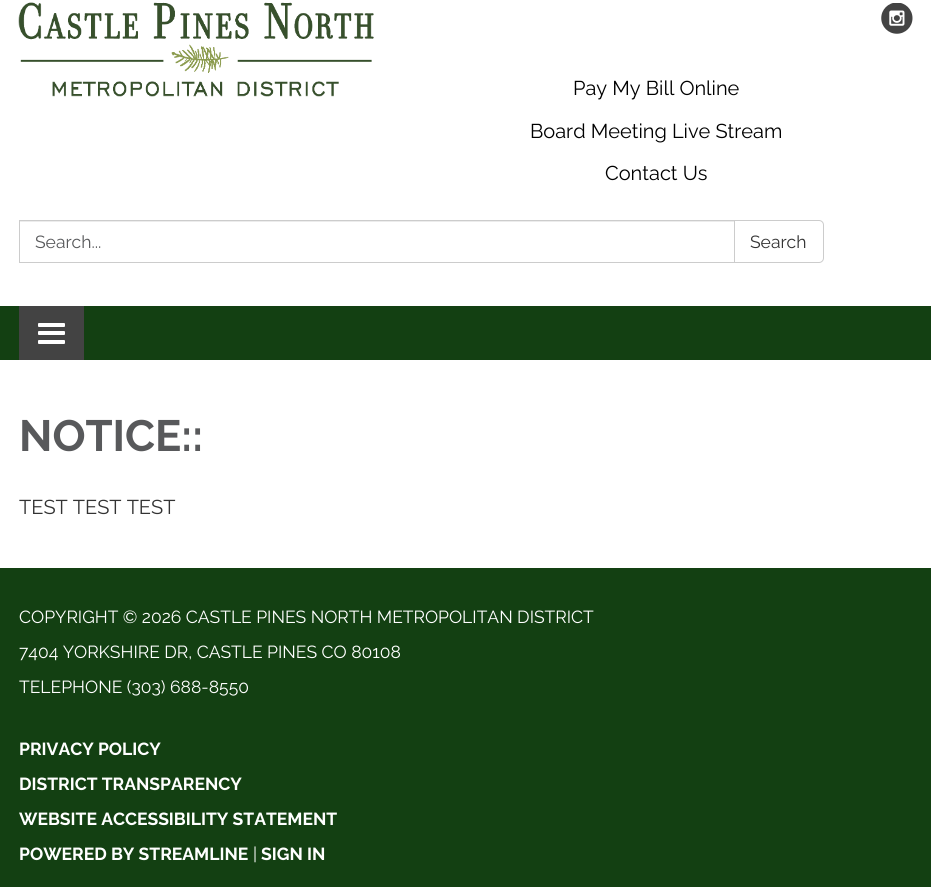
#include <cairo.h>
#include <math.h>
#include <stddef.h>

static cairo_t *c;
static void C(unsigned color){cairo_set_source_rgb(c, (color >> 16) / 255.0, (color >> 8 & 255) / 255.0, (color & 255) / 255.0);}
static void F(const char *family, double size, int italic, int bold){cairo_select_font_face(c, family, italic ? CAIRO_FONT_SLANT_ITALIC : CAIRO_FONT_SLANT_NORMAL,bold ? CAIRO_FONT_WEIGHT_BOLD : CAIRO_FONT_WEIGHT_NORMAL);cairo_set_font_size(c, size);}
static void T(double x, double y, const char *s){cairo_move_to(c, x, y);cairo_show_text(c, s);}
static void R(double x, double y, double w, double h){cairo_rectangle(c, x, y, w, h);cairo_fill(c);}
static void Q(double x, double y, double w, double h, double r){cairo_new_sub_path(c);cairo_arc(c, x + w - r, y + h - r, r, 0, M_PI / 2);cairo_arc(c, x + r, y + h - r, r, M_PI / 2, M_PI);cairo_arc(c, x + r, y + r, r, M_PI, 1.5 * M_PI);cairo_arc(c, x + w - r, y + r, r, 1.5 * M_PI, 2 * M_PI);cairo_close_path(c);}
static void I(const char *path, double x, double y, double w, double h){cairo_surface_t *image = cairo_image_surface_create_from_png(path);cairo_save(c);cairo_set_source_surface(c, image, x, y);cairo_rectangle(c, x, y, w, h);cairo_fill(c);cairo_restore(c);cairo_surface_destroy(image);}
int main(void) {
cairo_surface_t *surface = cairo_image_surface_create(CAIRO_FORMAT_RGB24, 931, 887);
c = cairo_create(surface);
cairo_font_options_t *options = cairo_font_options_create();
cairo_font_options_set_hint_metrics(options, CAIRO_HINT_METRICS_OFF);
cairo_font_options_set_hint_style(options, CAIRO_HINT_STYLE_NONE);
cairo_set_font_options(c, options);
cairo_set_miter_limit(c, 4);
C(0x134012);
cairo_paint(c);
C(0xffffff);
R(0,0,931,306);
I("1.png",18,2,356,95);
I("2.png",881,3,32,31);
F("Raleway",20,0,0);
C(0x000000);
T(573,95,"Pay My Bill Online");
T(530,138,"Board Meeting Live Stream");
T(605,180,"Contact Us");
C(0xececec);
R(20,221,714,1);
cairo_rectangle(c,19.5,220.5,715,42);
C(0xcccccc);
cairo_set_line_width(c,1);
cairo_stroke(c);
F("Raleway",17.5,0,0);
C(0x58595b);
T(35,248,"Search...");
C(0xffffff);
cairo_new_path(c);
cairo_move_to(c,734.5,220.5);
cairo_line_to(c,819,220.5);
cairo_curve_to(c,821.5,220.5,823.5,222.5,823.5,225);
cairo_line_to(c,823.5,258);
cairo_curve_to(c,823.5,260.5,821.5,262.5,819,262.5);
cairo_line_to(c,734.5,262.5);
cairo_close_path(c);
cairo_fill_preserve(c);
C(0xcccccc);
cairo_stroke(c);
C(0x333333);
T(750,248,"Search");
C(0x434343);
R(19,306,65,54);
C(0xffffff);
Q(38,323,27,4,1);
cairo_fill(c);
Q(38,331,27,4,1);
cairo_fill(c);
Q(38,340,27,4,1);
cairo_fill(c);
R(0,360,931,208);
F("Raleway",43.75,0,1);
C(0x58595b);
T(19,451,"NOTICE::");
F("Raleway",20,0,0);
C(0x333333);
T(19,514,"TEST TEST TEST");
F("Raleway",17.5,0,0);
C(0xffffff);
T(19,623,"COPYRIGHT © 2026 CASTLE PINES NORTH METROPOLITAN DISTRICT");
T(19,658,"7404 YORKSHIRE DR, CASTLE PINES CO 80108");
T(19,693,"TELEPHONE (303) 688-8550");
F("Raleway",17.5,0,1);
T(19,755,"PRIVACY POLICY");
T(19,790,"DISTRICT TRANSPARENCY");
T(19,825,"WEBSITE ACCESSIBILITY STATEMENT");
T(19,860,"POWERED BY STREAMLINE");
F("Raleway",17.5,0,0);
T(253,860,"|");
F("Raleway",17.5,0,1);
T(261,860,"SIGN IN");
cairo_surface_write_to_png(surface, "o.png");
cairo_font_options_destroy(options);
cairo_destroy(c);
cairo_surface_destroy(surface);
return 0;
}
